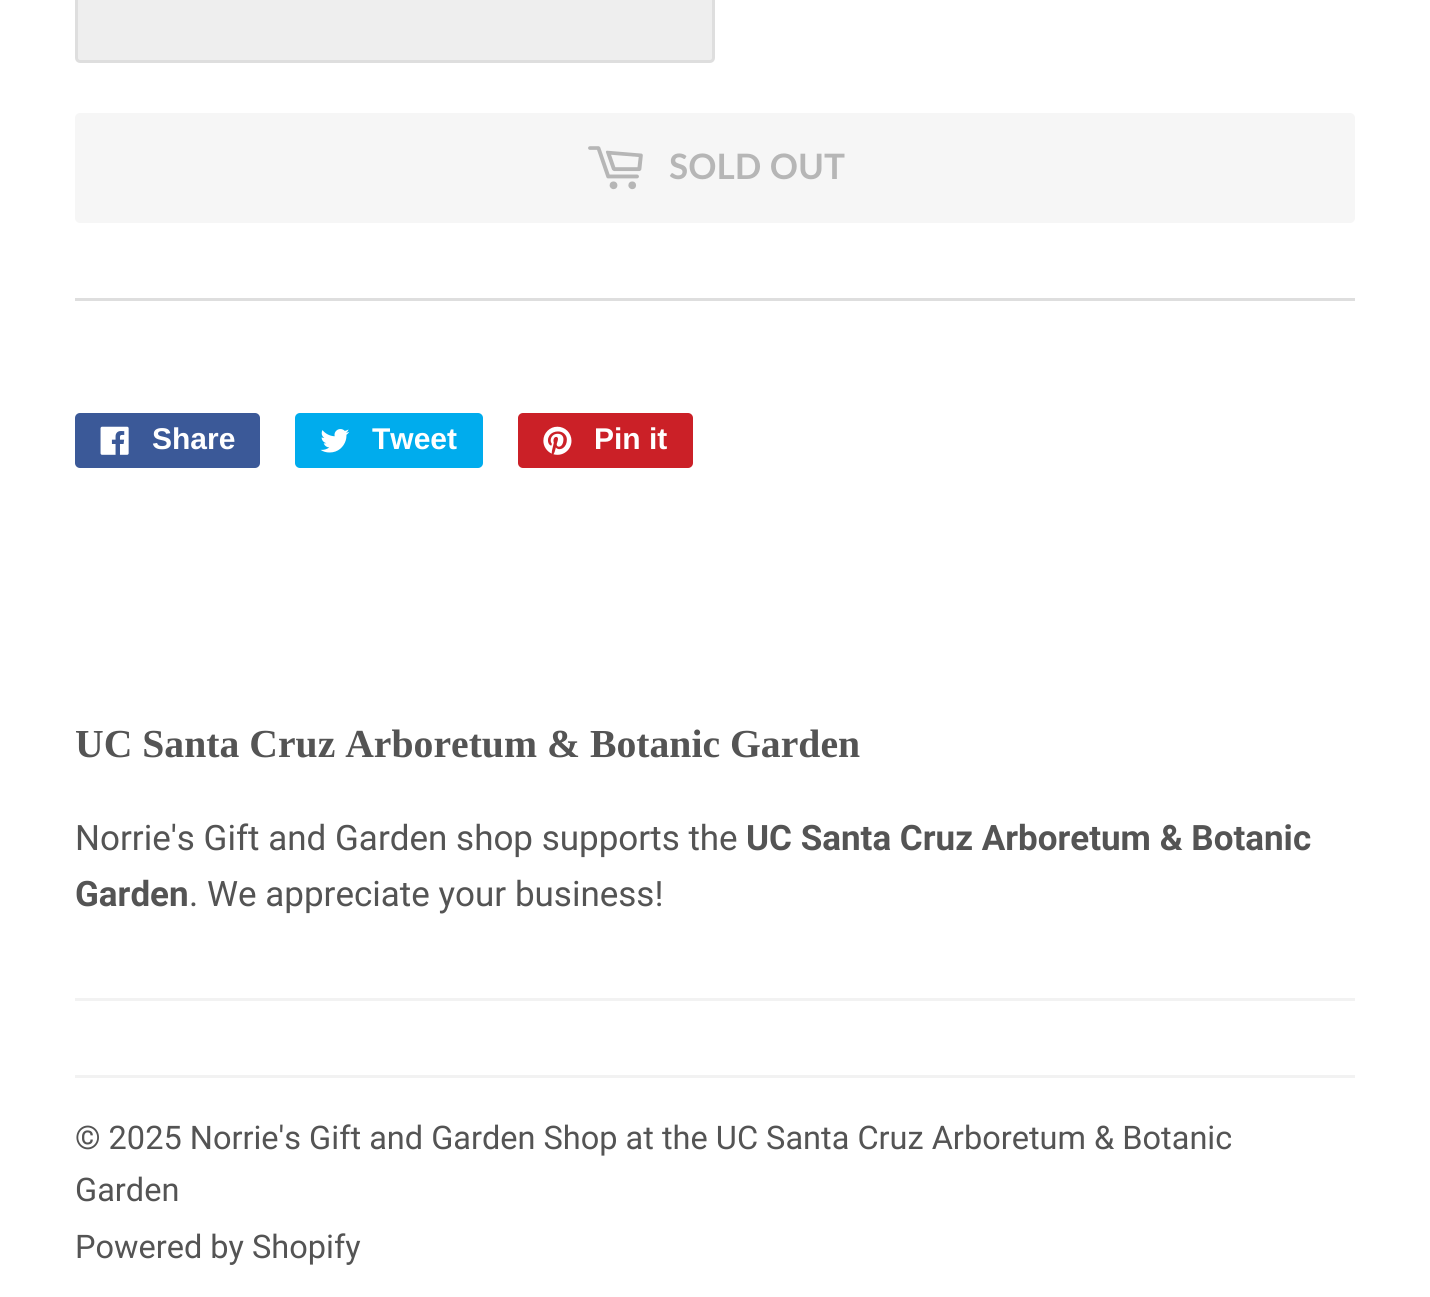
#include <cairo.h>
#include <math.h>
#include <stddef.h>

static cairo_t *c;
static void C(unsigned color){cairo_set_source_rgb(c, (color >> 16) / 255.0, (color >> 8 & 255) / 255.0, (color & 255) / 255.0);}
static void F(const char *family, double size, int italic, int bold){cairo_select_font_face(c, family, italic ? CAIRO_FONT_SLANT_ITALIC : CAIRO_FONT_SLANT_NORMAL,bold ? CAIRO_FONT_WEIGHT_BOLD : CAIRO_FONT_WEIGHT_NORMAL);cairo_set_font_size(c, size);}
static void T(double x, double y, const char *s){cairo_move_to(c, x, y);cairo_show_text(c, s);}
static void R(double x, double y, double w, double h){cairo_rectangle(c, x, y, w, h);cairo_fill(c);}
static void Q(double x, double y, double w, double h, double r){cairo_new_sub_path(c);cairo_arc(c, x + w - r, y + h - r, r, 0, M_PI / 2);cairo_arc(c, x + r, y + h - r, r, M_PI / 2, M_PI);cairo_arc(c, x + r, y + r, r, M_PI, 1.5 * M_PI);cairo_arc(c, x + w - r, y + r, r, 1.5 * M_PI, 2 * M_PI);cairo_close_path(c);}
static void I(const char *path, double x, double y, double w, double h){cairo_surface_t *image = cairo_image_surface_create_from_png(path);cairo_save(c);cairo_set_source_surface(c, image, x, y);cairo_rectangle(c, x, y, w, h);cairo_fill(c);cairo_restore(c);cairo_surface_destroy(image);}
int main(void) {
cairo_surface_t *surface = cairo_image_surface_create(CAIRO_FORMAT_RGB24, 1430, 1297);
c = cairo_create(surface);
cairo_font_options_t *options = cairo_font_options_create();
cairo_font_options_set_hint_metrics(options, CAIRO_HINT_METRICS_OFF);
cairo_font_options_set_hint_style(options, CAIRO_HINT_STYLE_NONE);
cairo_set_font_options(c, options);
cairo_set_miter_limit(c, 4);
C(0xffffff);
cairo_paint(c);
C(0xeeeeee);
Q(76.5,-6.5,637,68,3.5);
cairo_fill_preserve(c);
C(0xdedede);
cairo_set_line_width(c,3);
cairo_stroke(c);
C(0xf6f6f6);
Q(75,113,1280,110,5);
cairo_fill(c);
I("1.png",588,146,55,44);
F("Lato",35,0,1);
C(0xb6b6b6);
T(669,179,"SOLD OUT");
C(0xdedede);
R(75,298,1280,3);
C(0x3b5998);
Q(75,413,185,55,5);
cairo_fill(c);
I("2.png",100,426,29,29);
F("Liberation Sans",30,0,1);
C(0xffffff);
T(152,449,"Share");
C(0x00aced);
Q(295,413,188,55,5);
cairo_fill(c);
I("3.png",320,429,30,24);
C(0xffffff);
T(372,449,"Tweet");
C(0xcb2027);
Q(518,413,175,55,5);
cairo_fill(c);
I("4.png",543,426,29,29);
C(0xffffff);
T(594,449,"Pin it");
F("Liberation Serif",39.7,0,1);
C(0x545454);
T(75,757,"UC Santa Cruz Arboretum & Botanic Garden");
F("Roboto",35,0,0);
T(75,850,"Norrie's Gift and Garden shop supports the");
F("Roboto",35,0,1);
T(746,850,"UC Santa Cruz Arboretum & Botanic");
T(75,906,"Garden");
F("Roboto",35,0,0);
T(189,906,". We appreciate your business!");
C(0xf2f2f2);
R(75,998,1280,3);
R(75,1075,1280,3);
F("Roboto",32.5,0,0);
C(0x545454);
T(75,1149,"© 2025 Norrie's Gift and Garden Shop at the UC Santa Cruz Arboretum & Botanic");
T(75,1201,"Garden");
T(75,1258,"Powered by Shopify");
cairo_surface_write_to_png(surface, "o.png");
cairo_font_options_destroy(options);
cairo_destroy(c);
cairo_surface_destroy(surface);
return 0;
}
